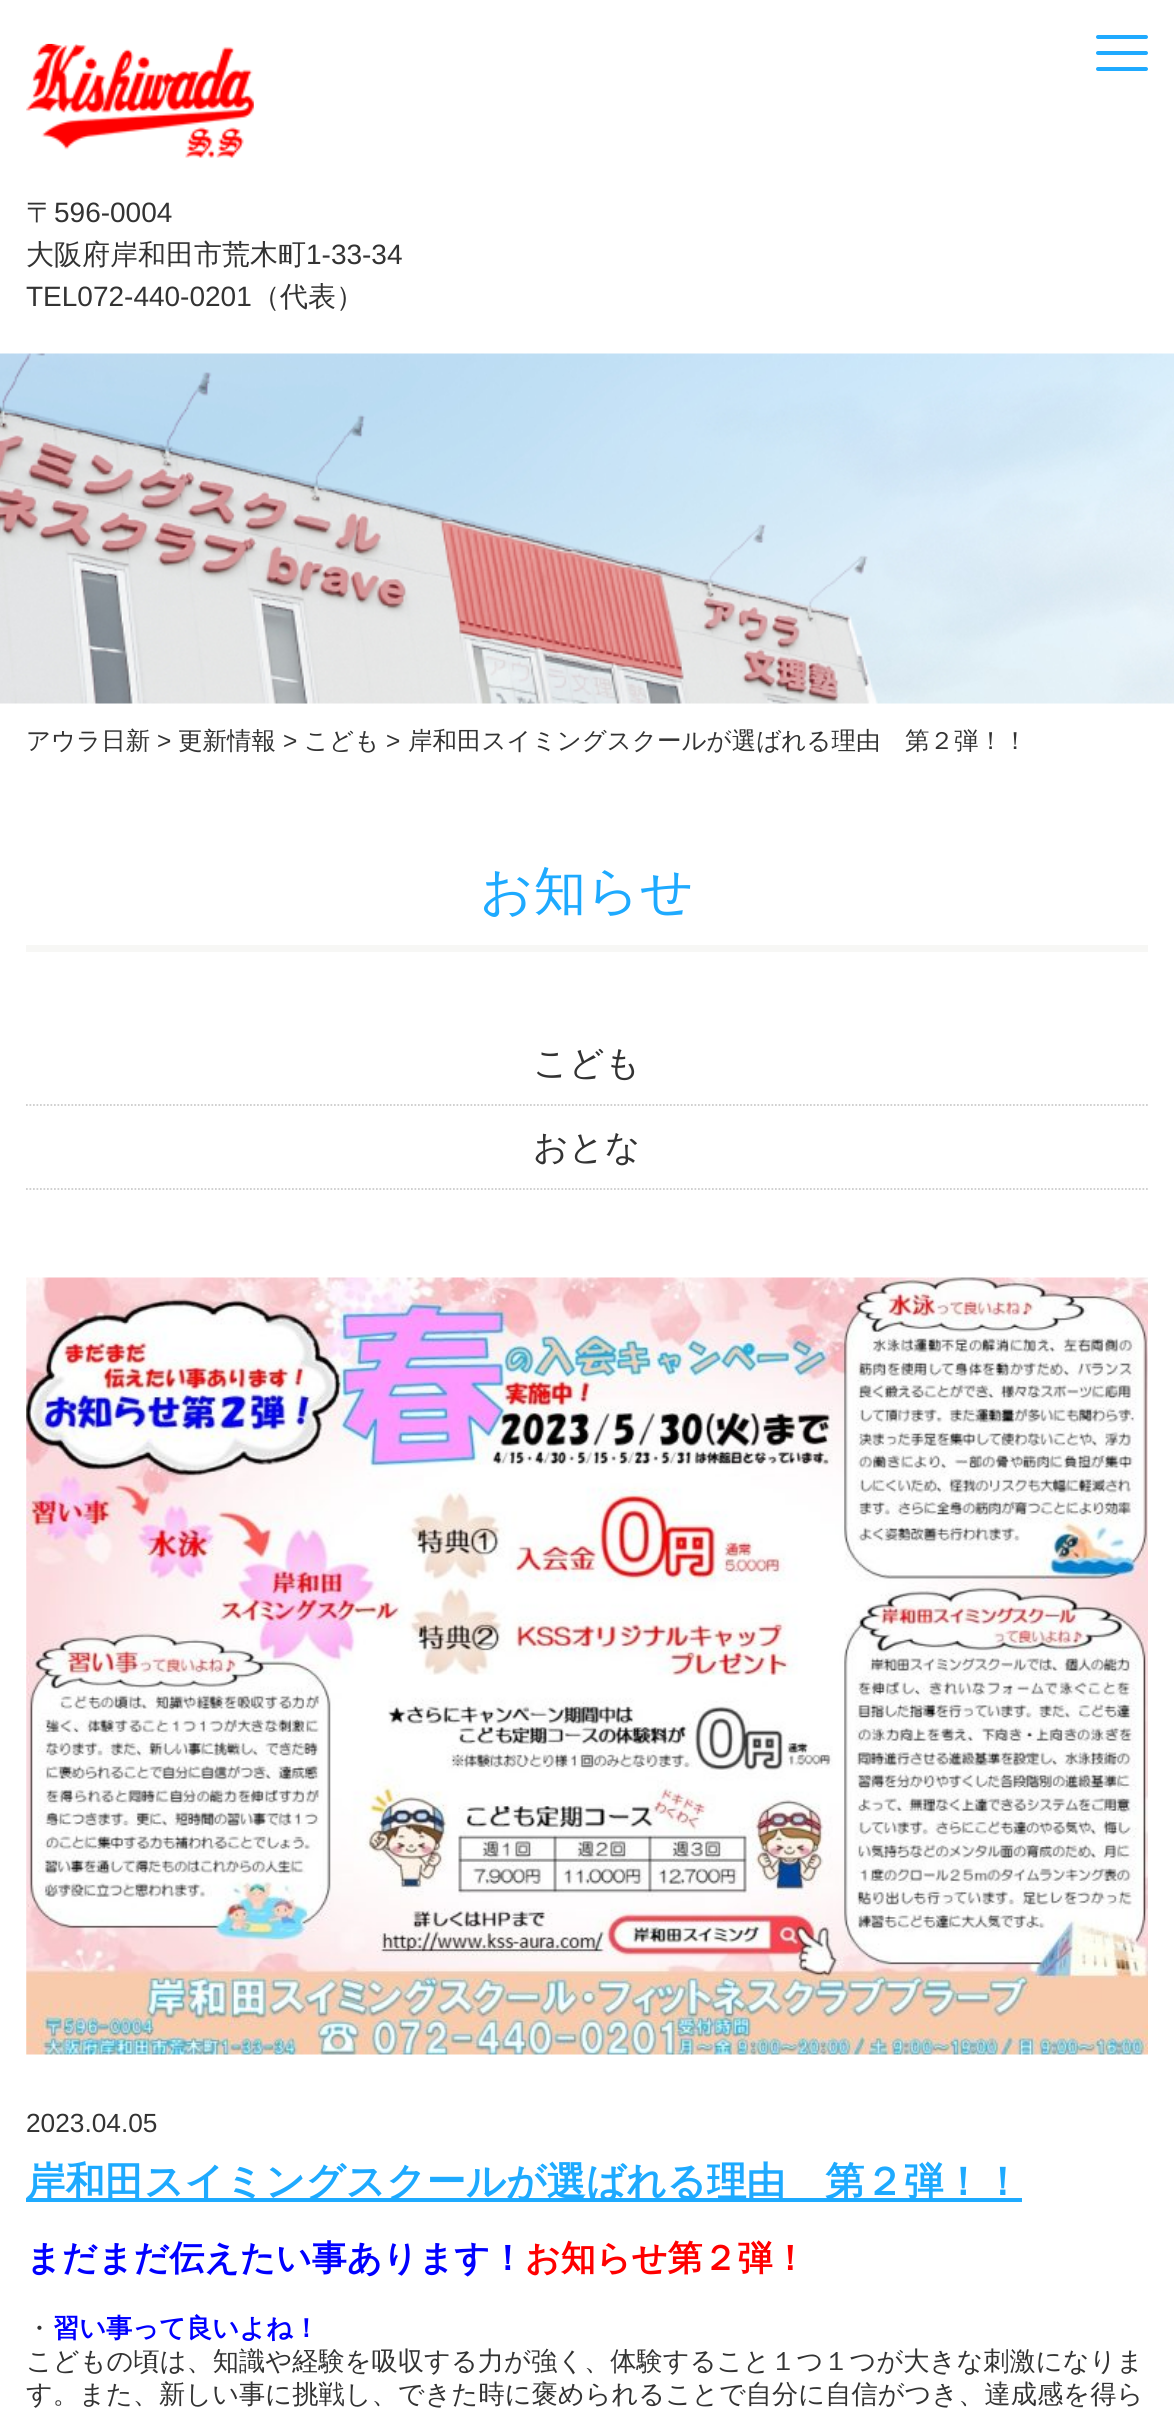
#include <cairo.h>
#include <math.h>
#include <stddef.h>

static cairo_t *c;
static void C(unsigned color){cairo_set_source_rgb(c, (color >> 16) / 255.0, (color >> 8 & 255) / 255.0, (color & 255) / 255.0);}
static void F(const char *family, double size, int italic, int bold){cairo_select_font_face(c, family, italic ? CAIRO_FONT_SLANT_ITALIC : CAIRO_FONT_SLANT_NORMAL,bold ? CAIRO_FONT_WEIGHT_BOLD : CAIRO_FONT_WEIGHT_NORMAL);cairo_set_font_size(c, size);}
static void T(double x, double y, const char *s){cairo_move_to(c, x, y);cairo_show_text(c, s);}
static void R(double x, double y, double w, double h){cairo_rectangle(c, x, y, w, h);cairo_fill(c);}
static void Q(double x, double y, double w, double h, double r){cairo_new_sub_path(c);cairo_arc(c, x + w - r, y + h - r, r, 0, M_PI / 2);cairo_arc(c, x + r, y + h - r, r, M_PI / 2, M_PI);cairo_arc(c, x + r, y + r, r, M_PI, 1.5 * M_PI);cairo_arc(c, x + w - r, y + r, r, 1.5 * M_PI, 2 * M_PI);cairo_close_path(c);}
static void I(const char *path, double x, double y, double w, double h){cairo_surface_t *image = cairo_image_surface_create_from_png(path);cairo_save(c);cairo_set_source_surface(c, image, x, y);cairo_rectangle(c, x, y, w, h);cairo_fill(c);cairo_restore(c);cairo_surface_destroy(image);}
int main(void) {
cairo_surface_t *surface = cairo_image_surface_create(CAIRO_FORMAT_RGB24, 1174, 2412);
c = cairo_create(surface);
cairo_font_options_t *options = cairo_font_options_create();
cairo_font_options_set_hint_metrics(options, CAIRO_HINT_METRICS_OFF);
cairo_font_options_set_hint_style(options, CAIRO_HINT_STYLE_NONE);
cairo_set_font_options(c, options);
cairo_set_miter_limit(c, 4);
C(0xffffff);
cairo_paint(c);
I("1.png",26,43,228,115);
C(0x1faaff);
Q(1096,35,52,4,2);
cairo_fill(c);
Q(1096,51,52,4,2);
cairo_fill(c);
Q(1096,67,52,4,2);
cairo_fill(c);
F("WenQuanYi Zen Hei Medium",28,0,0);
C(0x333333);
T(26,222,"〒");
F("Liberation Sans",28,0,0);
T(54,222,"596-0004");
F("WenQuanYi Zen Hei Medium",28,0,0);
T(26,264,"大阪府岸和田市荒木町");
F("Liberation Sans",28,0,0);
T(306,264,"1-33-34");
T(26,306,"TEL072-440-0201");
F("WenQuanYi Zen Hei Medium",28,0,0);
T(252,306,"（代表）");
I("2.png",0,353,1174,351);
F("WenQuanYi Zen Hei Medium",24.5,0,0);
T(26,749,"アウラ日新");
F("Liberation Sans",24.5,0,0);
T(157,749,">");
F("WenQuanYi Zen Hei Medium",24.5,0,0);
T(178,749,"更新情報");
F("Liberation Sans",24.5,0,0);
T(283,749,">");
F("WenQuanYi Zen Hei Medium",24.5,0,0);
T(304,749,"こども");
F("Liberation Sans",24.5,0,0);
T(386,749,">");
F("WenQuanYi Zen Hei Medium",24.5,0,0);
T(408,749,"岸和田スイミングスクールが選ばれる理由　第２弾！！");
C(0xf7f7f5);
R(26,945,1122,7);
F("WenQuanYi Zen Hei Medium",52.5,0,0);
C(0x1eaaff);
T(480,909,"お知らせ");
cairo_new_path(c);
cairo_move_to(c,26,1105);
cairo_line_to(c,1148,1105);
C(0xcccccc);
cairo_set_line_width(c,1.8);
cairo_set_dash(c,(double[]){1.75,1.75},2,0);
cairo_stroke(c);
F("WenQuanYi Zen Hei Medium",35,0,0);
C(0x333333);
T(533,1075,"こども");
cairo_new_path(c);
cairo_move_to(c,26,1189);
cairo_line_to(c,1148,1189);
C(0xcccccc);
cairo_stroke(c);
C(0x333333);
T(533,1159,"おとな");
I("3.png",26,1277,1122,778);
F("Liberation Sans",26.25,0,0);
T(26,2132,"2023.04.05");
C(0x1eaaff);
R(26,2198,996,4);
F("WenQuanYi Zen Hei",39.4,0,1);
T(26,2195,"岸和田スイミングスクールが選ばれる理由　第２弾！！");
F("WenQuanYi Zen Hei",35,0,1);
C(0x0000ff);
T(26,2270,"まだまだ伝えたい事あります！");
C(0xff0000);
T(525,2270,"お知らせ第２弾！");
F("WenQuanYi Zen Hei Medium",26.25,0,0);
C(0x333333);
T(26,2337,"・");
F("WenQuanYi Zen Hei",26.25,0,1);
C(0x0000ff);
T(53,2337,"習い事って良いよね！");
F("WenQuanYi Zen Hei Medium",26.25,0,0);
C(0x333333);
T(26,2370,"こどもの頃は、知識や経験を吸収する力が強く、体験すること１つ１つが大きな刺激になりま");
T(26,2403,"す。また、新しい事に挑戦し、できた時に褒められることで自分に自信がつき、達成感を得ら");
cairo_surface_write_to_png(surface, "o.png");
cairo_font_options_destroy(options);
cairo_destroy(c);
cairo_surface_destroy(surface);
return 0;
}
